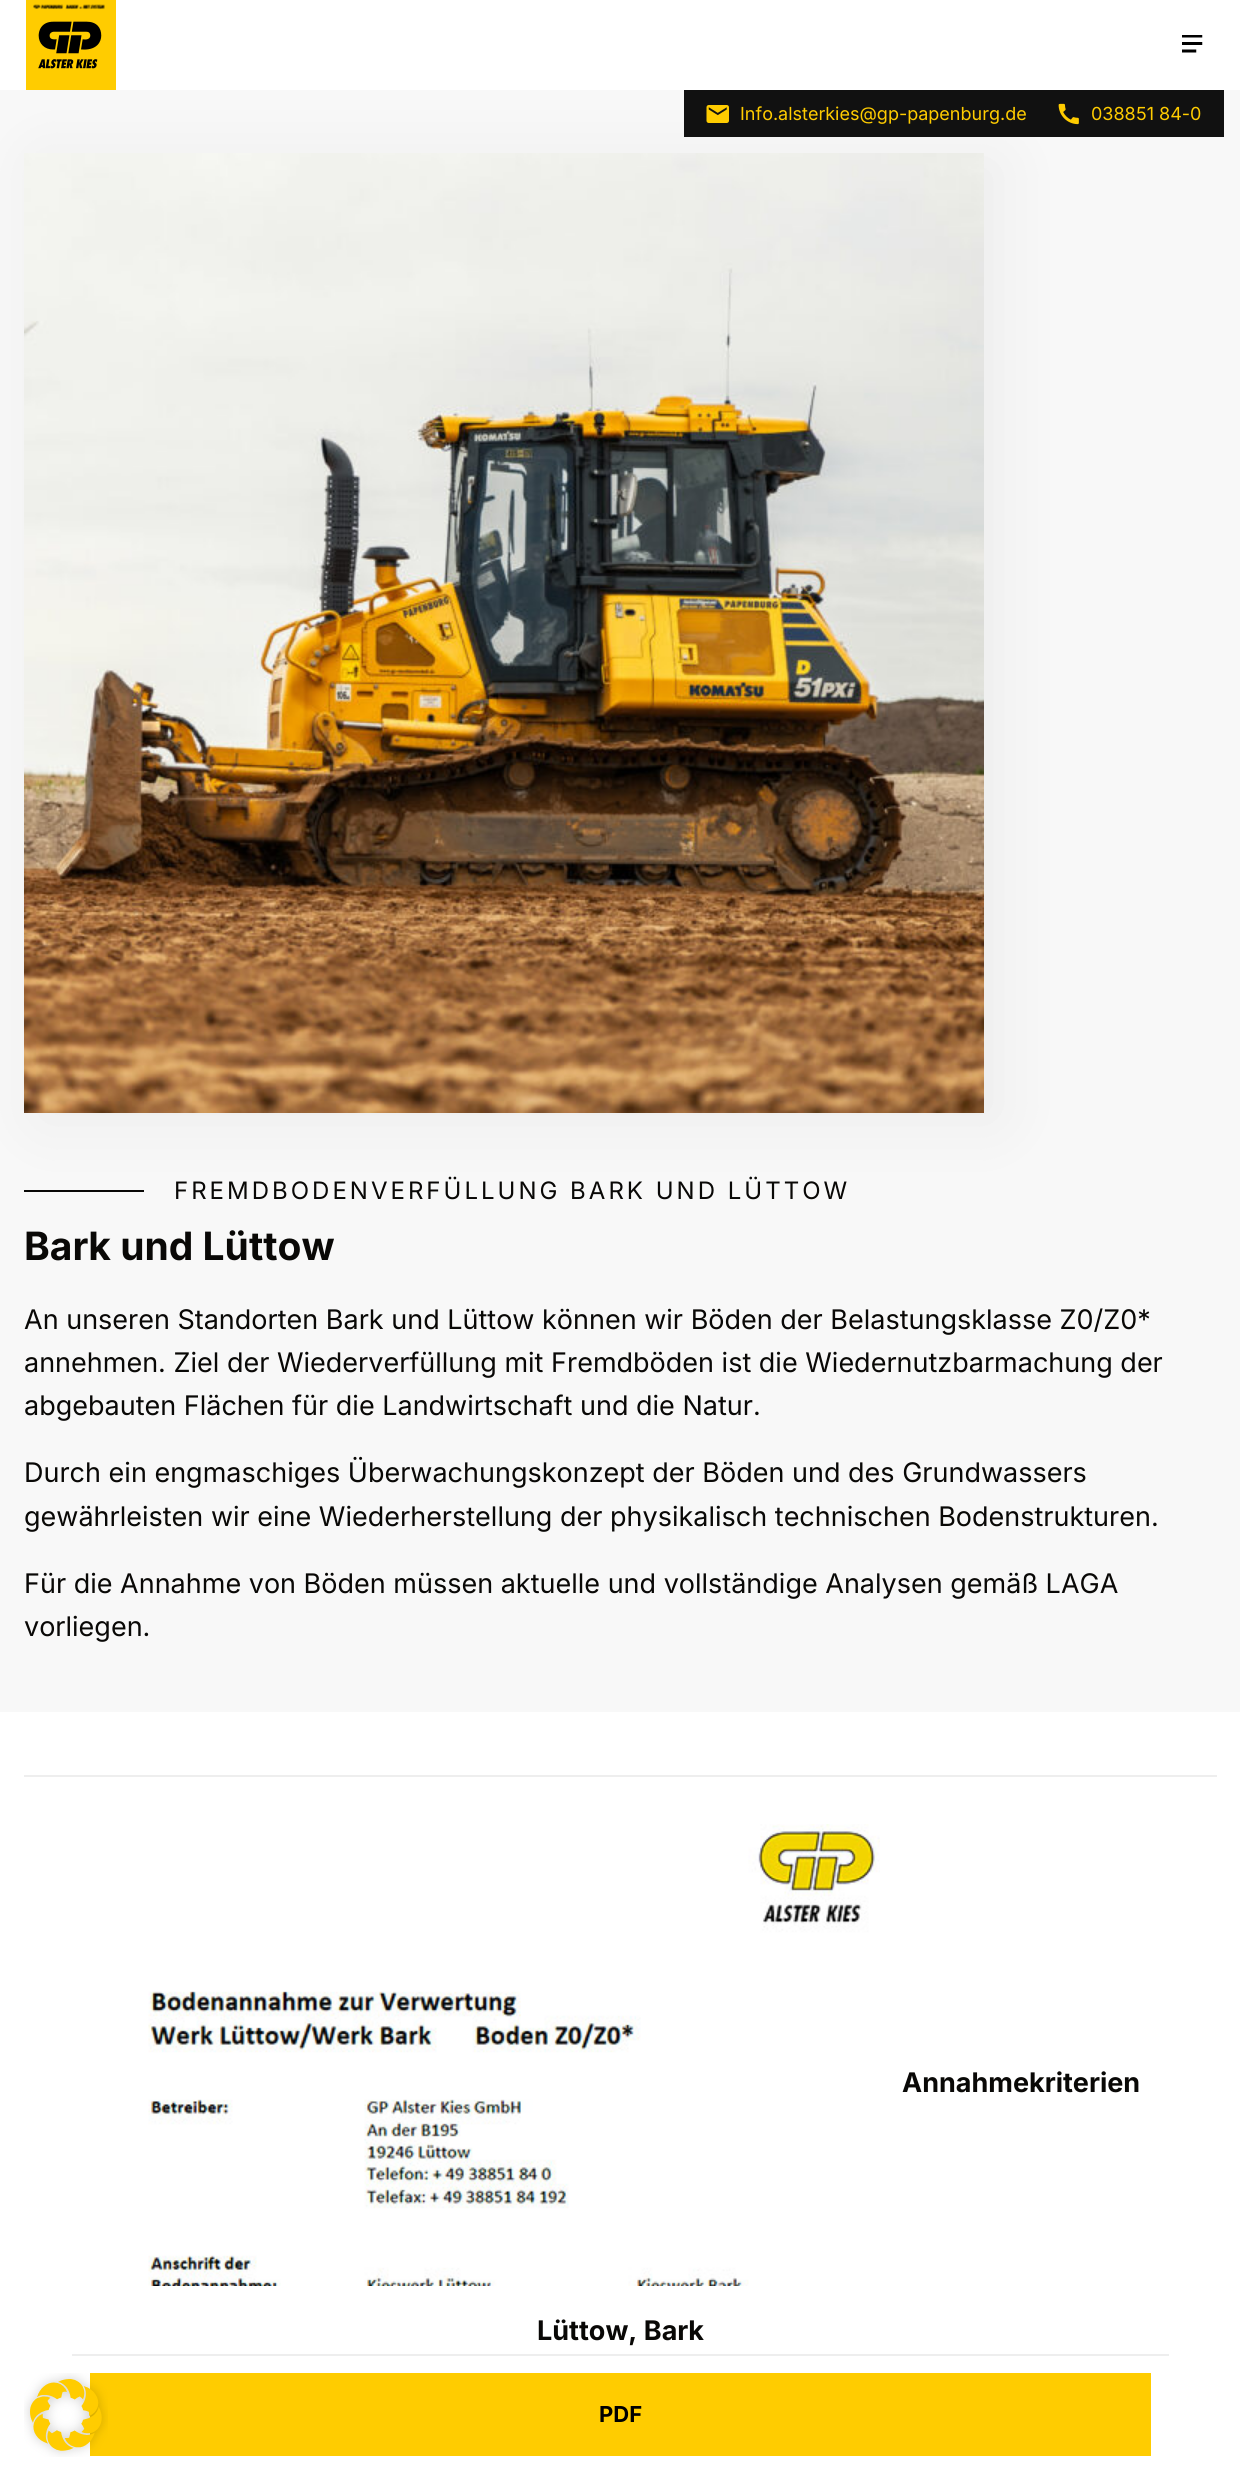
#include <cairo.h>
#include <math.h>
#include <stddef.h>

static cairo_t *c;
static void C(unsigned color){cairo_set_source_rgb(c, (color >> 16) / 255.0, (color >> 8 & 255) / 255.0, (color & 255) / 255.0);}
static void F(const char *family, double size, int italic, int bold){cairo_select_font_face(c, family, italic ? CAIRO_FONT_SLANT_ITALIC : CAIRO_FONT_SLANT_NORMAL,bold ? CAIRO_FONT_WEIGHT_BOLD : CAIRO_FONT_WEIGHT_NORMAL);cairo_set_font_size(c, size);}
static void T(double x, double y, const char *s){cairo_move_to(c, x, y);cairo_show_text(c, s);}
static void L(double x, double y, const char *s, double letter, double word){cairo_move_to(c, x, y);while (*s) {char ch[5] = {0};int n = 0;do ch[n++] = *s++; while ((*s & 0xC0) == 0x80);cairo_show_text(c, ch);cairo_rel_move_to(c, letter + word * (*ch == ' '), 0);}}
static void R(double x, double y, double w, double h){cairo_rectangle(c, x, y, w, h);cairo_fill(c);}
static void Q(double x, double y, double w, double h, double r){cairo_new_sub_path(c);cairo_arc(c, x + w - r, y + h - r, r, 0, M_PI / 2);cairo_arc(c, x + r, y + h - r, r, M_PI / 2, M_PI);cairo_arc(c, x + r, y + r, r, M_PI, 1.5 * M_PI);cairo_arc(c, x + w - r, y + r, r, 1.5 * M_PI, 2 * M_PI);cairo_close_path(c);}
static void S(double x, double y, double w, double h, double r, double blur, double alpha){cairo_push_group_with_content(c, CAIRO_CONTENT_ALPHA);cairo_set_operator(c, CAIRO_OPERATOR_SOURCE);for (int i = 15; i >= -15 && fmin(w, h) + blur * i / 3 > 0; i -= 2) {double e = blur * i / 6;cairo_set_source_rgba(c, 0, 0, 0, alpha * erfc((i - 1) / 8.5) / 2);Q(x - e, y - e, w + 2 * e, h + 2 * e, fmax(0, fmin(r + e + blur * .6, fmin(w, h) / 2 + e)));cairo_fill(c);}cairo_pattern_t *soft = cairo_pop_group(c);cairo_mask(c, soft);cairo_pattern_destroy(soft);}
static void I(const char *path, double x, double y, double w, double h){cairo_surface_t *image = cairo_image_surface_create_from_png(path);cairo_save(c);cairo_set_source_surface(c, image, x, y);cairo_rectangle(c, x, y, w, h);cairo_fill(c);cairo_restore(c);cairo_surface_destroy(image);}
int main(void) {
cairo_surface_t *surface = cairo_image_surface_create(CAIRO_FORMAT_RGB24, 1240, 2481);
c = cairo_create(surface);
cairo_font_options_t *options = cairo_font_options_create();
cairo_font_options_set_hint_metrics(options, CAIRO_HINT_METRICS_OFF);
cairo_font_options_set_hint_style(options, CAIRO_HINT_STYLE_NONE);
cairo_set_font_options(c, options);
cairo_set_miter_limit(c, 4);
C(0xffffff);
cairo_paint(c);
C(0xf8f8f8);
R(0,90,1240,1622);
C(0x000000);
S(39,161,960,960,0,34,.05);
C(0xffcc00);
R(26,0,90,90);
I("1.png",33,4,72,6);
I("2.png",38,21,64,48);
I("3.png",1182,35,21,18);
C(0x111111);
R(684,90,540,47);
I("4.png",706,105,23,18);
F("Inter",18,0,0);
C(0xffcc00);
T(740,120,"Info.alsterkies@gp-papenburg.de");
I("5.png",1058,103,21,22);
T(1091,120,"038851 84-0");
I("6.png",24,153,960,960);
C(0x090806);
R(24,1190,120,2);
F("Inter",24,0,0);
L(174,1199,"FREMDBODENVERFÜLLUNG BARK UND LÜTTOW",3,0);
F("Inter",39,0,1);
T(24,1260,"Bark und Lüttow");
F("Inter",27,0,0);
T(24,1329,"An unseren Standorten Bark und Lüttow können wir Böden der Belastungsklasse Z0/Z0*");
T(24,1372,"annehmen. Ziel der Wiederverfüllung mit Fremdböden ist die Wiedernutzbarmachung der");
T(24,1415,"abgebauten Flächen für die Landwirtschaft und die Natur.");
T(24,1482,"Durch ein engmaschiges Überwachungskonzept der Böden und des Grundwassers");
T(24,1526,"gewährleisten wir eine Wiederherstellung der physikalisch technischen Bodenstrukturen.");
T(24,1593,"Für die Annahme von Böden müssen aktuelle und vollständige Analysen gemäß LAGA");
T(24,1636,"vorliegen.");
C(0xffcc00);
R(90,2373,1061,83);
I("7.png",24,2373,84,84);
C(0xeeeeee);
R(24,1775,1193,2);
I("8.png",148,1824,732,462);
F("Inter",27,0,1);
C(0x090806);
T(902,2092,"Annahmekriterien");
T(537,2340,"Lüttow, Bark");
C(0xeeeeee);
R(72,2354,1097,2);
F("Inter",22,0,1);
C(0x000000);
T(599,2422,"PDF");
cairo_surface_write_to_png(surface, "o.png");
cairo_font_options_destroy(options);
cairo_destroy(c);
cairo_surface_destroy(surface);
return 0;
}
